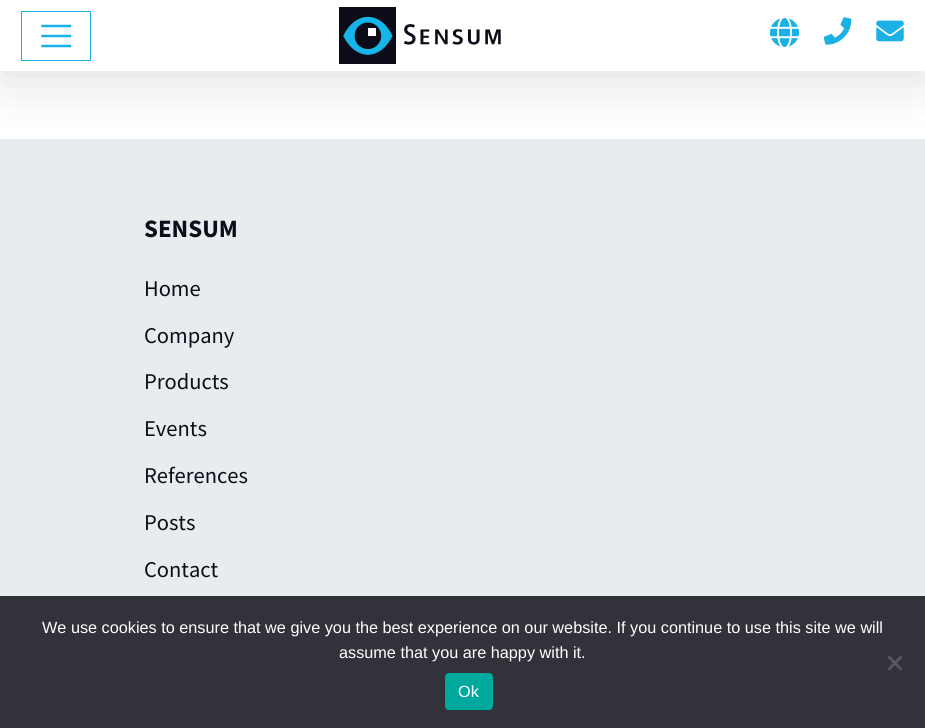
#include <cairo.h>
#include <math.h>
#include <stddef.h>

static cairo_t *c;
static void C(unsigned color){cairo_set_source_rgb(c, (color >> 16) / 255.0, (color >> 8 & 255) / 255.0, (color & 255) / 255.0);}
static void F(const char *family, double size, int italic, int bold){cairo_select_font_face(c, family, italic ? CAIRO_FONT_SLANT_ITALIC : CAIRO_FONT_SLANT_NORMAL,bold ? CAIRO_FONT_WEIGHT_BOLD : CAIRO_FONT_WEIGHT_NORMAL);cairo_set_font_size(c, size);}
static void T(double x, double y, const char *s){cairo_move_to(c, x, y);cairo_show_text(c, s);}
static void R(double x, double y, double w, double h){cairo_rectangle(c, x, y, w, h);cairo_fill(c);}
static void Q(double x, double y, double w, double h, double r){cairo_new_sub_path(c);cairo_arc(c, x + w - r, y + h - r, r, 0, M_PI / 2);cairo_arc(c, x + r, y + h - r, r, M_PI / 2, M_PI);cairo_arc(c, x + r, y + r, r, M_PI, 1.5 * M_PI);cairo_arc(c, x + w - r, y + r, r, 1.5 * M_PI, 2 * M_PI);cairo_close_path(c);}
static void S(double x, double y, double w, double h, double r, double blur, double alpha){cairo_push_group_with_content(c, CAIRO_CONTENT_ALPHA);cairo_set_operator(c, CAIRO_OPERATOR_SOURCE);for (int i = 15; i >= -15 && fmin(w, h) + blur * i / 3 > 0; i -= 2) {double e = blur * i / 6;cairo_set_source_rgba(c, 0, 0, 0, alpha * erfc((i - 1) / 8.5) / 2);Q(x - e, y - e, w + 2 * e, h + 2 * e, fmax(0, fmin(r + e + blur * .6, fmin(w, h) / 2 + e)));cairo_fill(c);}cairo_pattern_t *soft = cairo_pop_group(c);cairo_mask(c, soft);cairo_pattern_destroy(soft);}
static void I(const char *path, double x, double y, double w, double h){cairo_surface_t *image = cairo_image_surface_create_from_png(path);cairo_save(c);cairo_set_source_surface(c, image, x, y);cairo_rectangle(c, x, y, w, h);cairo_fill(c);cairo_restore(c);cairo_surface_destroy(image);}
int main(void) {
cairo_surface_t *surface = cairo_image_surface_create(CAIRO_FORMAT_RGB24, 925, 728);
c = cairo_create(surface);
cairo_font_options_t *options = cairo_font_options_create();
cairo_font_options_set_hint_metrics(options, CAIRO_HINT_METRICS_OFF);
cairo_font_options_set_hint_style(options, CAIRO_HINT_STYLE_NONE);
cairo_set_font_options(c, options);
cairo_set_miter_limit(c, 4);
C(0xffffff);
cairo_paint(c);
C(0xe9ecef);
R(0,139,925,457);
C(0x000000);
S(0,1,925,72,0,31,.15);
C(0xffffff);
R(0,0,925,71);
cairo_rectangle(c,21.5,11.5,69,49);
C(0x1bb1e7);
cairo_set_line_width(c,1);
cairo_stroke(c);
cairo_new_path(c);
cairo_move_to(c,42.5,26);
cairo_line_to(c,70,26);
cairo_move_to(c,42.5,36);
cairo_line_to(c,70,36);
cairo_move_to(c,42.5,46);
cairo_line_to(c,70,46);
C(0x1ab1e6);
cairo_set_line_width(c,2.5);
cairo_set_line_cap(c,CAIRO_LINE_CAP_SQUARE);
cairo_stroke(c);
I("1.png",339,7,162,57);
I("2.png",770,18,30,29);
I("3.png",823,17,29,28);
I("4.png",876,20,28,22);
F("Source Sans Pro",25,0,1);
C(0x0c0d18);
T(144,237,"SENSUM");
F("Source Sans Pro",22.5,0,0);
T(144,296,"Home");
T(144,343,"Company");
T(144,389,"Products");
T(144,436,"Events");
T(144,483,"References");
T(144,530,"Posts");
T(144,577,"Contact");
C(0x32323a);
R(0,596,925,132);
F("Liberation Sans",16.25,0,0);
C(0xffffff);
T(42,633,"We use cookies to ensure that we give you the best experience on our website. If you continue to use this site we will");
T(339,658,"assume that you are happy with it.");
C(0x59595d);
cairo_new_path(c);
cairo_move_to(c,900.5,655.5);
cairo_line_to(c,902.5,657.5);
cairo_line_to(c,889.5,670.5);
cairo_line_to(c,887.5,669);
cairo_close_path(c);
cairo_fill(c);
cairo_new_path(c);
cairo_move_to(c,887.5,657.5);
cairo_line_to(c,889.5,655.5);
cairo_line_to(c,902.5,669);
cairo_line_to(c,900.5,670.5);
cairo_close_path(c);
cairo_fill(c);
C(0x00a99d);
Q(445,673,48,37,4);
cairo_fill(c);
C(0xffffff);
T(458,697,"Ok");
cairo_surface_write_to_png(surface, "o.png");
cairo_font_options_destroy(options);
cairo_destroy(c);
cairo_surface_destroy(surface);
return 0;
}
